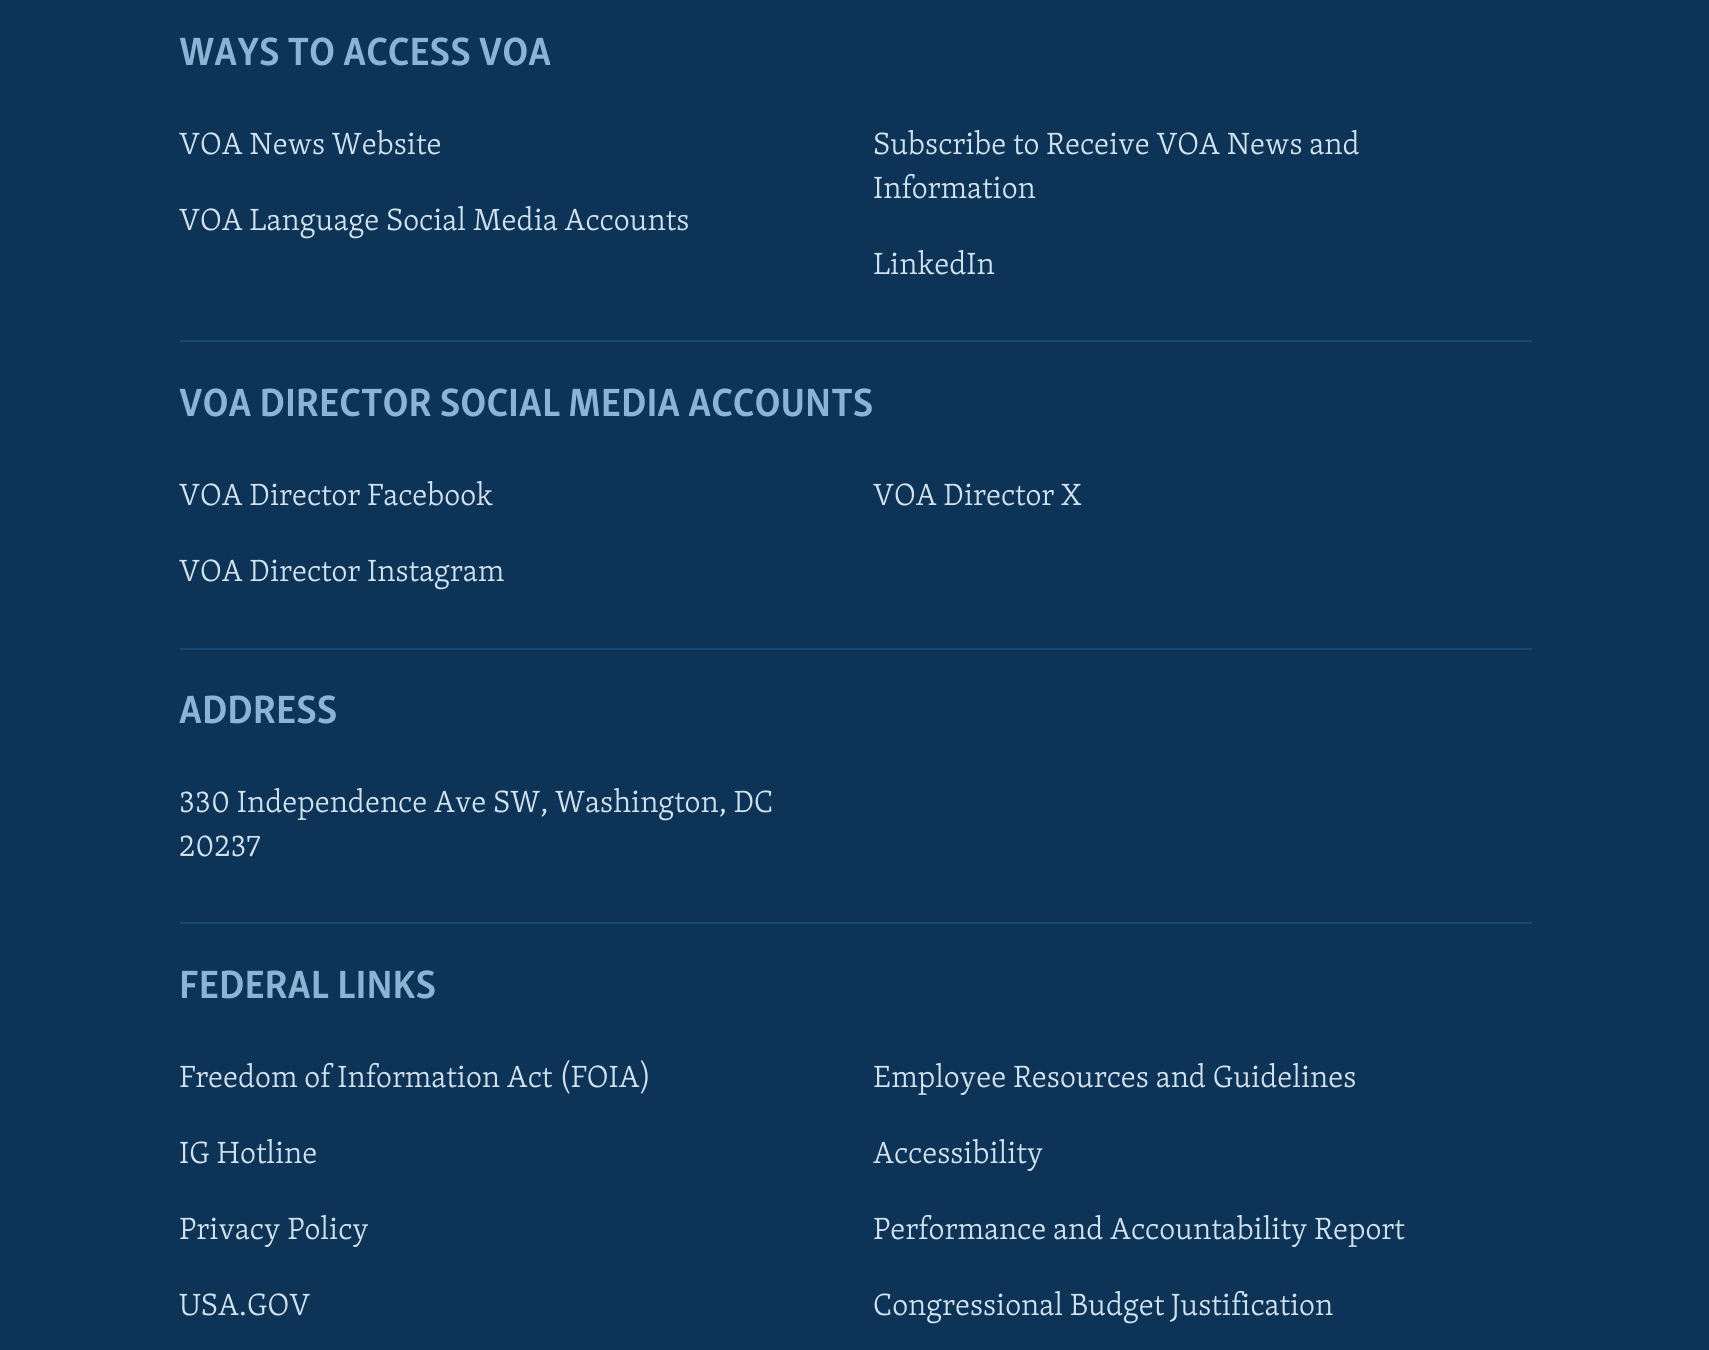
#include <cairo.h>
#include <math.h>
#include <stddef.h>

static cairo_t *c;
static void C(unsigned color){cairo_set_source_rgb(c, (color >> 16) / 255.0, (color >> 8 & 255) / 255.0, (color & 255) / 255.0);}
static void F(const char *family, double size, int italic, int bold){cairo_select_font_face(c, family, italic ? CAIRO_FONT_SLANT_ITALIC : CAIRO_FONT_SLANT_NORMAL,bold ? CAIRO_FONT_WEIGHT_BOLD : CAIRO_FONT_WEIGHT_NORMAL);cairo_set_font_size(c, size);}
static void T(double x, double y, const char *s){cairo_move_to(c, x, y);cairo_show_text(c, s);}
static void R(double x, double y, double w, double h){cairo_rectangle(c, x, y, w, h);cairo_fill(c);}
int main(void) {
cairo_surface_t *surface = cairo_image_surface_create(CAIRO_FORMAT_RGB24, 1709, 1350);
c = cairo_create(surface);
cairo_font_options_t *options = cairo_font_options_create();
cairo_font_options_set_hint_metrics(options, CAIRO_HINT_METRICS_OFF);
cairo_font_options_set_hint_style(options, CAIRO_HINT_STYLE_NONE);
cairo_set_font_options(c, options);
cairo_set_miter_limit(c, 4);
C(0x0d3456);
cairo_paint(c);
F("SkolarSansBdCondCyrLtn",40.5,0,1);
C(0x8db3d4);
T(179,65,"WAYS TO ACCESS VOA");
F("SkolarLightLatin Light",31.5,0,0);
C(0xd1e1ee);
T(179,154,"VOA News Website");
T(873,154,"Subscribe to Receive VOA News and");
T(873,198,"Information");
T(179,230,"VOA Language Social Media Accounts");
T(873,274,"LinkedIn");
C(0x134976);
R(180,340,1352,2);
F("SkolarSansBdCondCyrLtn",40.5,0,1);
C(0x8db3d4);
T(179,416,"VOA DIRECTOR SOCIAL MEDIA ACCOUNTS");
F("SkolarLightLatin Light",31.5,0,0);
C(0xd1e1ee);
T(179,505,"VOA Director Facebook");
T(873,505,"VOA Director X");
T(179,581,"VOA Director Instagram");
C(0x134976);
R(180,648,1352,2);
F("SkolarSansBdCondCyrLtn",40.5,0,1);
C(0x8db3d4);
T(179,723,"ADDRESS");
F("SkolarLightLatin Light",31.5,0,0);
C(0xd1e1ee);
T(179,812,"330 Independence Ave SW, Washington, DC");
T(179,856,"20237");
C(0x134976);
R(180,922,1352,2);
F("SkolarSansBdCondCyrLtn",40.5,0,1);
C(0x8db3d4);
T(179,998,"FEDERAL LINKS");
F("SkolarLightLatin Light",31.5,0,0);
C(0xd1e1ee);
T(179,1087,"Freedom of Information Act (FOIA)");
T(873,1087,"Employee Resources and Guidelines");
T(179,1163,"IG Hotline");
T(873,1163,"Accessibility");
T(179,1239,"Privacy Policy");
T(873,1239,"Performance and Accountability Report");
T(179,1315,"USA.GOV");
T(873,1315,"Congressional Budget Justification");
cairo_surface_write_to_png(surface, "o.png");
cairo_font_options_destroy(options);
cairo_destroy(c);
cairo_surface_destroy(surface);
return 0;
}
